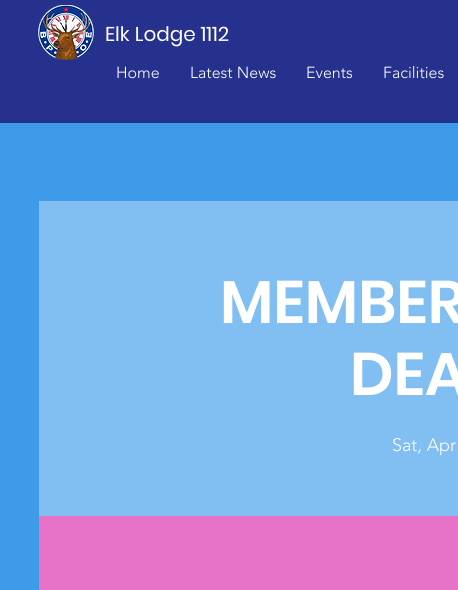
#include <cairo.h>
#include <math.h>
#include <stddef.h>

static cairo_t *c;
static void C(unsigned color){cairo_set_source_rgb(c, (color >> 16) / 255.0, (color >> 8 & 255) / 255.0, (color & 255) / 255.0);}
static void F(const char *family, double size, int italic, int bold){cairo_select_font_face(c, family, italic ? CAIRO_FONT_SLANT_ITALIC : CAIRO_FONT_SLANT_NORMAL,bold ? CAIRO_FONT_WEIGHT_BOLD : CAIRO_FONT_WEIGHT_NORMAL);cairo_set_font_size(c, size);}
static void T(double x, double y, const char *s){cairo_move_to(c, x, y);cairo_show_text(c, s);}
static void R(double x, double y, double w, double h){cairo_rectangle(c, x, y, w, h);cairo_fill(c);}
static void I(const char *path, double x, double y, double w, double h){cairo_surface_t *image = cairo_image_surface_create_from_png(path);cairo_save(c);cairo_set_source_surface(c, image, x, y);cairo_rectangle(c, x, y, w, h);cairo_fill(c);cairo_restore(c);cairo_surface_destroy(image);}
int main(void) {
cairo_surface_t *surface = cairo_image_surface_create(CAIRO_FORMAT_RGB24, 458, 590);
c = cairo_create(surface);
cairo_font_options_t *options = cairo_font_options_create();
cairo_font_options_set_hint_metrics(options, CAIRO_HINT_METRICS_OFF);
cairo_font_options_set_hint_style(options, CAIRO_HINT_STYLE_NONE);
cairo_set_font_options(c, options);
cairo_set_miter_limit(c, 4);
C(0x3d9be9);
cairo_paint(c);
C(0x25318d);
R(0,0,458,123);
I("1.png",37,5,58,55);
F("Poppins",20,0,0);
C(0xffffff);
T(105,41,"Elk Lodge 1112");
F("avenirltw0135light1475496 Light",16,0,0);
T(116,78,"Home");
T(190,78,"Latest News");
T(306,78,"Events");
T(383,78,"Facilities");
C(0x81bef1);
R(39,201,419,315);
F("Poppins SemiBold",60,0,0);
C(0xffffff);
T(220,323,"MEMBER");
T(350,395,"DEA");
F("avenirltw0135light1475496 Light",18,0,0);
T(392,451,"Sat, Apr");
C(0xe773c8);
R(39,516,419,74);
cairo_surface_write_to_png(surface, "o.png");
cairo_font_options_destroy(options);
cairo_destroy(c);
cairo_surface_destroy(surface);
return 0;
}
